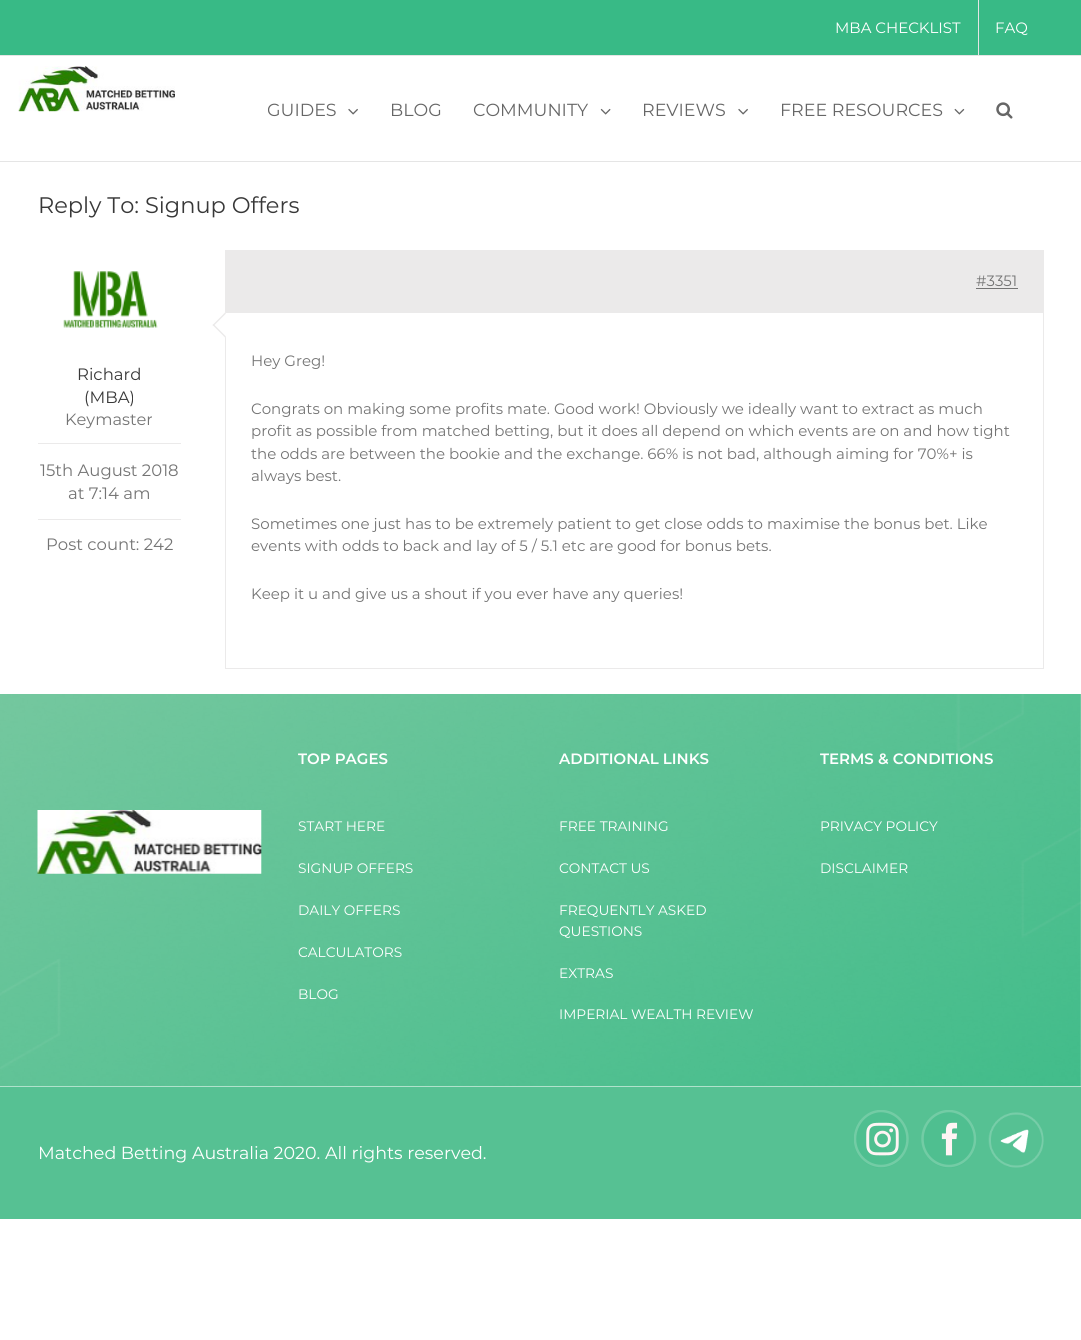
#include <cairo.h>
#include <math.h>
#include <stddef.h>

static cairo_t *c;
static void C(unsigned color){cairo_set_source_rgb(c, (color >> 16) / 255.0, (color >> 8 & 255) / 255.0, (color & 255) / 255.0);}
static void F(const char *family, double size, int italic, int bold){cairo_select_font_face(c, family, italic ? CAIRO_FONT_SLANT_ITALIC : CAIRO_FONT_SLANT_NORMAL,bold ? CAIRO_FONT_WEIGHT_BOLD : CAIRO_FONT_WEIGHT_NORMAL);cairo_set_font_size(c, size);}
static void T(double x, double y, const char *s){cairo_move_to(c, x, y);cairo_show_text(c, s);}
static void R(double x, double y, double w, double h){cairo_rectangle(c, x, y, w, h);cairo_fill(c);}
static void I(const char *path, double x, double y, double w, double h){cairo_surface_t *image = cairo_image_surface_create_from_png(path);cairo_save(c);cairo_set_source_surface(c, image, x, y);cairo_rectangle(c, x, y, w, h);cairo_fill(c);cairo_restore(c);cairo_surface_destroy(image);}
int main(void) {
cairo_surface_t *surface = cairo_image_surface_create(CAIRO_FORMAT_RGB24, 1081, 1340);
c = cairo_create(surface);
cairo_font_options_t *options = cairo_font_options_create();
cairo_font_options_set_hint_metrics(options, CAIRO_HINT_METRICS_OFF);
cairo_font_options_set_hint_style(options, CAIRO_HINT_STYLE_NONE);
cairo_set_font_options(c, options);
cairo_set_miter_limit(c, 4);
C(0xffffff);
cairo_paint(c);
C(0x38ba86);
R(0,0,1081,55);
C(0xe5e5e5);
R(0,55,1081,1);
F("Montserrat",15,0,0);
C(0xffffff);
T(835,33,"MBA CHECKLIST");
C(0xe5e5e5);
R(978,0,1,55);
C(0xffffff);
T(995,33,"FAQ");
C(0xe5e5e5);
R(0,161,1081,1);
I("1.png",18,66,157,46);
cairo_save(c);
cairo_rectangle(c,268,56,122,105);
cairo_clip(c);
F("Montserrat",17.5,0,0);
C(0x666666);
T(267,116,"GUIDES");
cairo_restore(c);
I("2.png",348,108,10,7);
F("Montserrat",17.5,0,0);
C(0x666666);
T(390,116,"BLOG");
T(473,116,"COMMUNITY");
I("3.png",600,108,11,7);
T(642,116,"REVIEWS");
I("2.png",738,108,10,7);
T(780,116,"FREE RESOURCES");
I("4.png",954,108,11,7);
I("5.png",996,102,17,17);
F("Montserrat",22.5,0,0);
C(0x383838);
T(38,213,"Reply To: Signup Offers");
I("6.png",63,271,95,57);
F("Montserrat",16.5,0,0);
T(77,380,"Richard");
T(84,403,"(MBA)");
F("Montserrat",16.25,0,0);
C(0x747474);
T(65,425,"Keymaster");
C(0xebeaea);
R(38,443,143,1);
R(38,519,143,1);
F("Montserrat",16.5,0,0);
C(0x747474);
T(40,476,"15th August 2018");
T(68,499,"at 7:14 am");
T(46,550,"Post count: 242");
cairo_rectangle(c,225.5,250.5,818,418);
C(0xebeaea);
cairo_set_line_width(c,1);
cairo_stroke(c);
R(226,251,817,62);
F("Montserrat",15,0,0);
C(0x747474);
T(976,286,"#3351");
R(976,288,42,1);
C(0xffffff);
cairo_new_path(c);
cairo_move_to(c,225,312.5);
cairo_line_to(c,237.5,325);
cairo_line_to(c,225,337.5);
cairo_line_to(c,212.5,325);
cairo_close_path(c);
cairo_fill(c);
C(0xebeaea);
cairo_new_path(c);
cairo_move_to(c,213.5,324);
cairo_line_to(c,226,336.5);
cairo_line_to(c,225,337.5);
cairo_line_to(c,212.5,325);
cairo_close_path(c);
cairo_fill(c);
cairo_new_path(c);
cairo_move_to(c,225,312.5);
cairo_line_to(c,226,313.5);
cairo_line_to(c,213.5,326);
cairo_line_to(c,212.5,325);
cairo_close_path(c);
cairo_fill(c);
C(0x747474);
T(251,366,"Hey Greg!");
T(251,414,"Congrats on making some profits mate. Good work! Obviously we ideally want to extract as much");
T(251,436,"profit as possible from matched betting, but it does all depend on which events are on and how tight");
T(251,459,"the odds are between the bookie and the exchange. 66% is not bad, although aiming for 70%+ is");
T(251,481,"always best.");
T(251,529,"Sometimes one just has to be extremely patient to get close odds to maximise the bonus bet. Like");
T(251,551,"events with odds to back and lay of 5 / 5.1 etc are good for bonus bets.");
T(251,599,"Keep it u and give us a shout if you ever have any queries!");
I("7.png",0,694,1081,392);
I("8.png",37,810,225,64);
F("Montserrat SemiBold",15,0,0);
C(0xffffff);
T(298,764,"TOP PAGES");
F("Montserrat",13.75,0,0);
T(298,831,"START HERE");
T(298,873,"SIGNUP OFFERS");
T(298,915,"DAILY OFFERS");
T(298,957,"CALCULATORS");
T(298,999,"BLOG");
F("Montserrat SemiBold",15,0,0);
T(559,764,"ADDITIONAL LINKS");
F("Montserrat",13.75,0,0);
T(559,831,"FREE TRAINING");
T(559,873,"CONTACT US");
T(559,915,"FREQUENTLY ASKED");
T(559,936,"QUESTIONS");
T(559,978,"EXTRAS");
T(559,1019,"IMPERIAL WEALTH REVIEW");
F("Montserrat SemiBold",15,0,0);
T(820,764,"TERMS & CONDITIONS");
F("Montserrat",13.75,0,0);
T(820,831,"PRIVACY POLICY");
T(820,873,"DISCLAIMER");
C(0x56c193);
R(0,1087,1081,132);
C(0xb0e2cc);
R(0,1086,1081,1);
F("Montserrat",17.5,0,0);
C(0xffffff);
T(38,1159,"Matched Betting Australia 2020. All rights reserved.");
cairo_save(c);
cairo_rectangle(c,854,1110,190,89);
cairo_clip(c);
C(0x4fbf90);
cairo_new_path(c);
cairo_move_to(c,881,1110);
cairo_curve_to(c,896,1110,908.5,1123,908.5,1139);
cairo_curve_to(c,908.5,1155,896,1168,881,1168);
cairo_curve_to(c,866,1168,853.5,1155,853.5,1139);
cairo_curve_to(c,853.5,1123,866,1110,881,1110);
cairo_close_path(c);
cairo_fill(c);
cairo_new_path(c);
cairo_move_to(c,881,1111);
cairo_curve_to(c,895.5,1111,907.5,1123.5,907.5,1139);
cairo_curve_to(c,907.5,1154,895.5,1166,881,1166);
cairo_curve_to(c,867,1166,855,1154,855,1139);
cairo_curve_to(c,855,1123.5,867,1111,881,1111);
cairo_close_path(c);
C(0x73cca5);
cairo_set_line_width(c,2.5);
cairo_stroke(c);
cairo_restore(c);
I("9.png",866,1122,33,34);
C(0x4fbf90);
cairo_new_path(c);
cairo_move_to(c,949,1110);
cairo_curve_to(c,964,1110,976.5,1123,976.5,1139);
cairo_curve_to(c,976.5,1155,964,1168,949,1168);
cairo_curve_to(c,934,1168,921.5,1155,921.5,1139);
cairo_curve_to(c,921.5,1123,934,1110,949,1110);
cairo_close_path(c);
cairo_fill(c);
cairo_save(c);
cairo_rectangle(c,854,1110,190,89);
cairo_clip(c);
cairo_new_path(c);
cairo_move_to(c,949,1111);
cairo_curve_to(c,963,1111,975,1123.5,975,1139);
cairo_curve_to(c,975,1154,963,1166,949,1166);
cairo_curve_to(c,934.5,1166,922.5,1154,922.5,1139);
cairo_curve_to(c,922.5,1123.5,934.5,1111,949,1111);
cairo_close_path(c);
C(0x73cca5);
cairo_set_line_width(c,2.5);
cairo_stroke(c);
cairo_restore(c);
I("10.png",941,1122,17,34);
I("11.png",988,1112,56,56);
cairo_surface_write_to_png(surface, "o.png");
cairo_font_options_destroy(options);
cairo_destroy(c);
cairo_surface_destroy(surface);
return 0;
}
